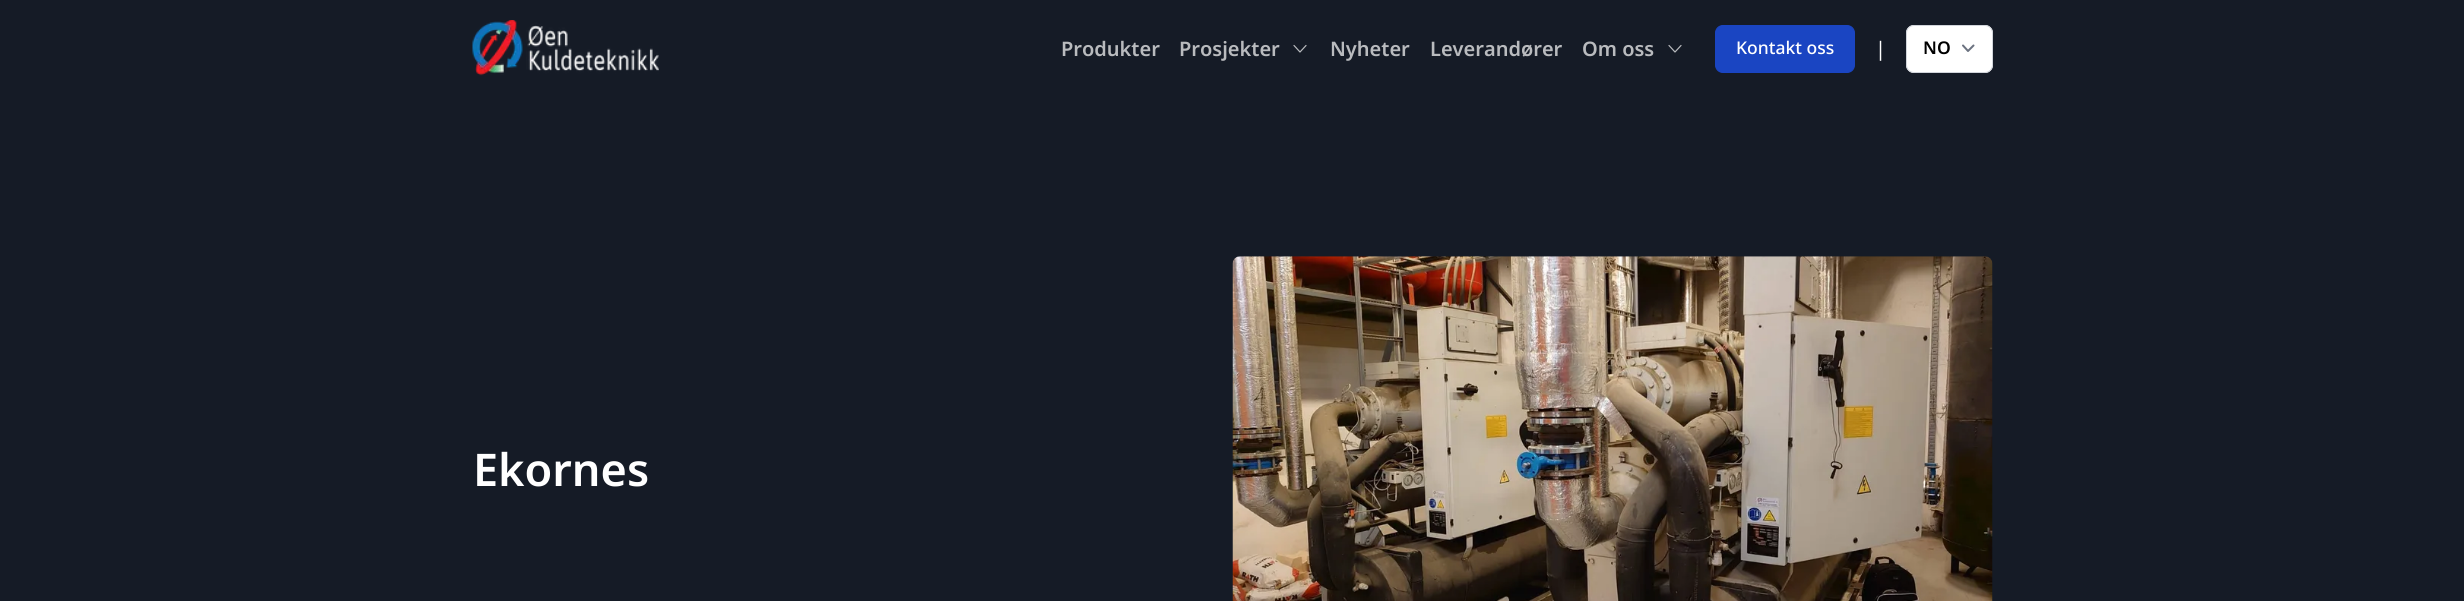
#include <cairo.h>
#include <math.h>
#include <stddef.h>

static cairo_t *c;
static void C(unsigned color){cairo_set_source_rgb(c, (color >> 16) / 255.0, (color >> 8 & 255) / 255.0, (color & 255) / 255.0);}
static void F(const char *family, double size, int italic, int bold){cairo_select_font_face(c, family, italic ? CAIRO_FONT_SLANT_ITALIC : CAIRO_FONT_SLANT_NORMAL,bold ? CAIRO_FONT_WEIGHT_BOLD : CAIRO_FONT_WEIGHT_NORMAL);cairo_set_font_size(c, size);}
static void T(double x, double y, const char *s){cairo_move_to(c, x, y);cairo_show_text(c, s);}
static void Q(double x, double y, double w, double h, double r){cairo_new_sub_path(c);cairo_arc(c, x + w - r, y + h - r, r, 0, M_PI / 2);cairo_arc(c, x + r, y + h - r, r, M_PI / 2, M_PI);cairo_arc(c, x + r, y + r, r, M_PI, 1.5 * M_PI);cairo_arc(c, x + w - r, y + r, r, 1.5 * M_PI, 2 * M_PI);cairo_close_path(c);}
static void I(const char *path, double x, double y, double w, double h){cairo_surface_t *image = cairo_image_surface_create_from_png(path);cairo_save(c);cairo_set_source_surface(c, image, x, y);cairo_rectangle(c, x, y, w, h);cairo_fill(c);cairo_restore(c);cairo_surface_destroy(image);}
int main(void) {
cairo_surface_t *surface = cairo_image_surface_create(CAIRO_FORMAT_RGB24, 2464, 601);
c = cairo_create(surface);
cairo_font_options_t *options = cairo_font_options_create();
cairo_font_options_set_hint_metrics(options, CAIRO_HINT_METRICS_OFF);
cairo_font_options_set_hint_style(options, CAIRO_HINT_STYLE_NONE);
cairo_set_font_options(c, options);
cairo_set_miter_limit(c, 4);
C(0x151b26);
cairo_paint(c);
I("1.png",472,20,187,56);
F("Noto Sans SemiBold",20,0,0);
C(0xb9bbbe);
T(1061,56,"Produkter");
T(1179,56,"Prosjekter");
cairo_new_path(c);
cairo_move_to(c,1306,45.5);
cairo_line_to(c,1300,52);
cairo_line_to(c,1294,45.5);
cairo_set_line_width(c,1.2);
cairo_set_line_cap(c,CAIRO_LINE_CAP_ROUND);
cairo_set_line_join(c,CAIRO_LINE_JOIN_ROUND);
cairo_stroke(c);
T(1330,56,"Nyheter");
T(1430,56,"Leverandører");
T(1582,56,"Om oss");
cairo_new_path(c);
cairo_move_to(c,1681,45.5);
cairo_line_to(c,1675,52);
cairo_line_to(c,1669,45.5);
cairo_stroke(c);
C(0x1a45c2);
Q(1715.5,25.5,139,47,7.5);
cairo_fill_preserve(c);
cairo_set_line_width(c,1);
cairo_set_line_cap(c,CAIRO_LINE_CAP_BUTT);
cairo_set_line_join(c,CAIRO_LINE_JOIN_MITER);
cairo_stroke(c);
F("Noto Sans Medium",17.5,0,0);
C(0xffffff);
T(1736,54,"Kontakt oss");
F("Noto Sans",20,0,0);
T(1875,56,"|");
Q(1906,25,87,48,8);
cairo_fill(c);
cairo_new_path(c);
cairo_move_to(c,1963,45.5);
cairo_line_to(c,1968,51);
cairo_line_to(c,1973.5,45.5);
C(0x6b7280);
cairo_set_line_width(c,2);
cairo_set_line_cap(c,CAIRO_LINE_CAP_ROUND);
cairo_set_line_join(c,CAIRO_LINE_JOIN_ROUND);
cairo_stroke(c);
Q(1906.5,25.5,86,47,7.5);
C(0xd1d5db);
cairo_set_line_width(c,1);
cairo_set_line_cap(c,CAIRO_LINE_CAP_BUTT);
cairo_set_line_join(c,CAIRO_LINE_JOIN_MITER);
cairo_stroke(c);
F("Noto Sans SemiBold",17.5,0,0);
C(0x000000);
T(1923,54,"NO");
F("Noto Sans SemiBold",45,0,0);
C(0xffffff);
T(473,486,"Ekornes");
I("2.png",1232,256,761,345);
cairo_surface_write_to_png(surface, "o.png");
cairo_font_options_destroy(options);
cairo_destroy(c);
cairo_surface_destroy(surface);
return 0;
}
